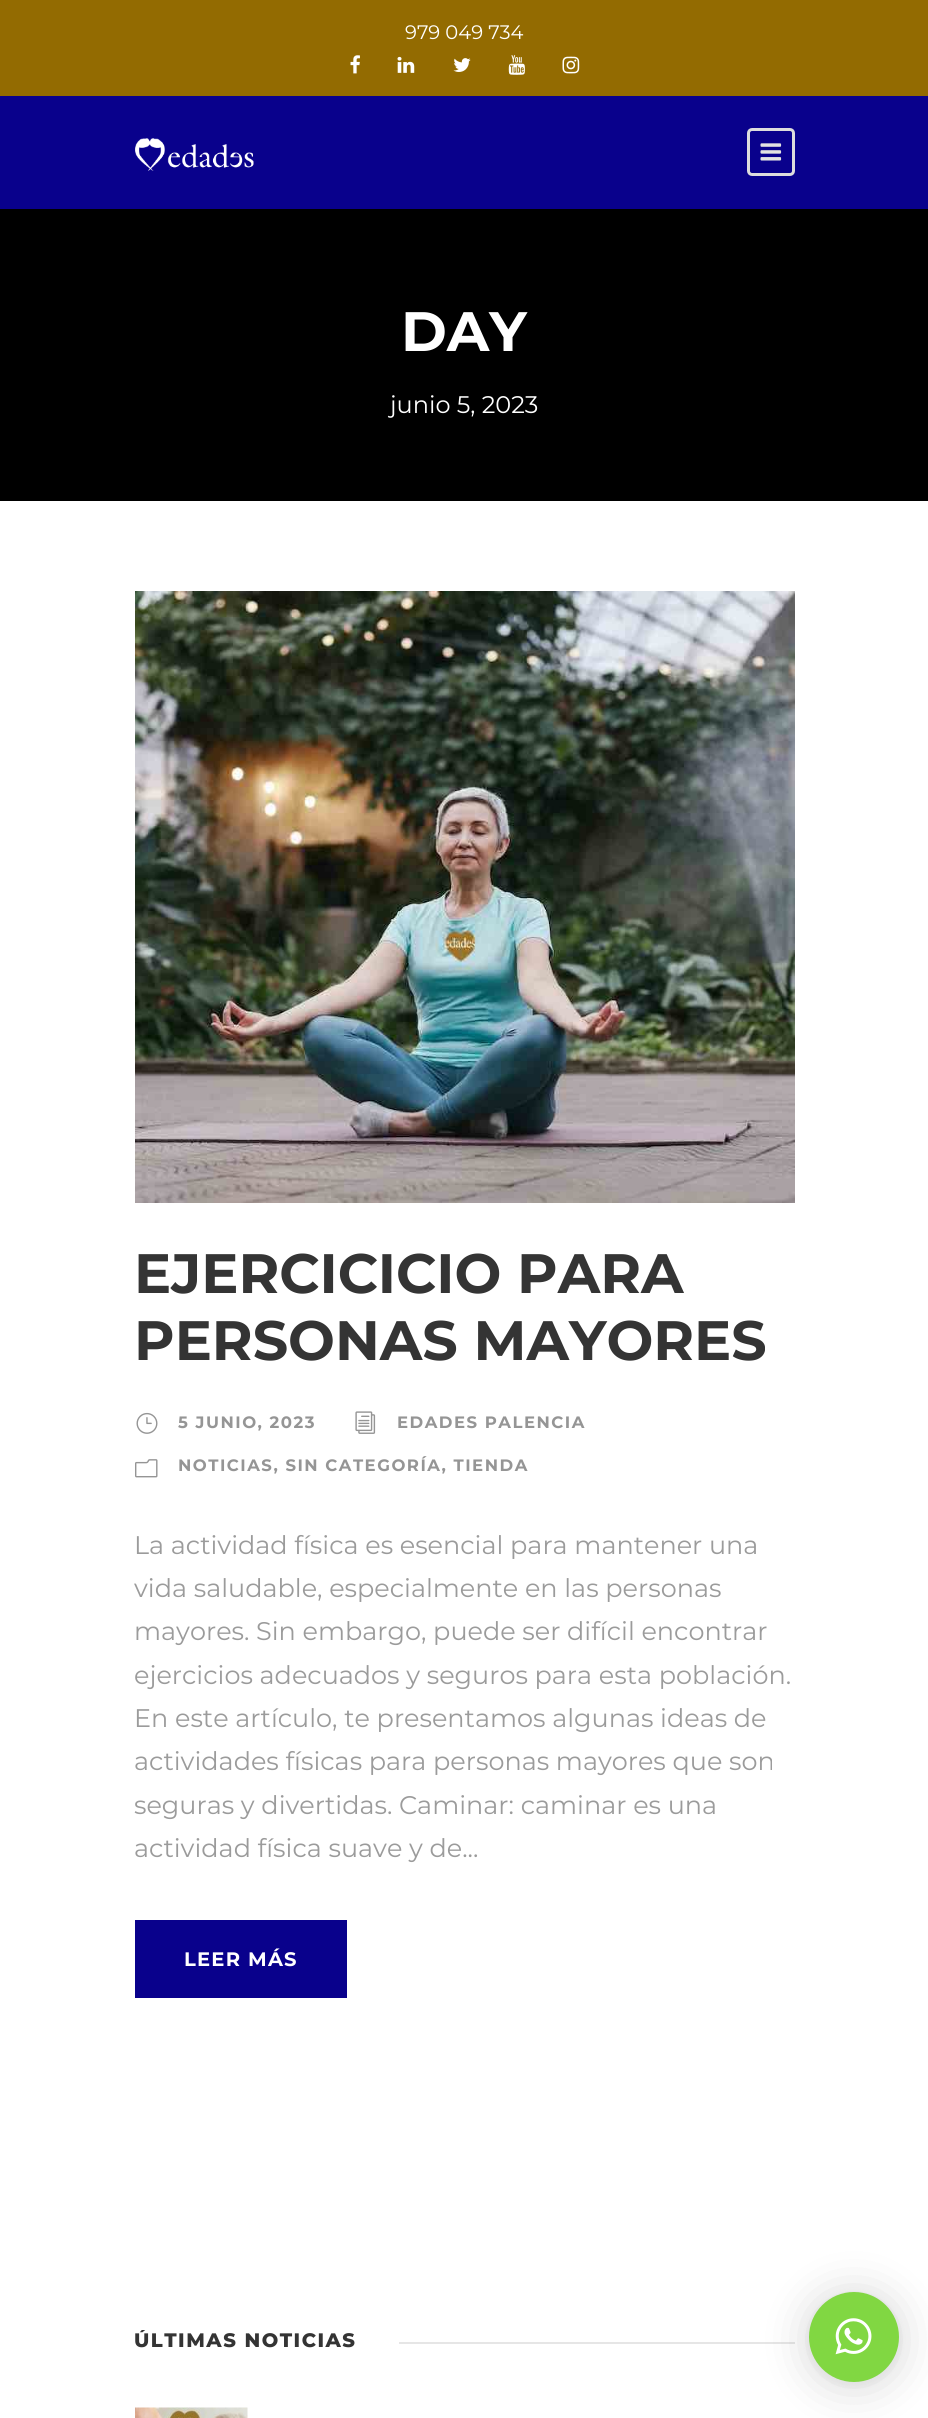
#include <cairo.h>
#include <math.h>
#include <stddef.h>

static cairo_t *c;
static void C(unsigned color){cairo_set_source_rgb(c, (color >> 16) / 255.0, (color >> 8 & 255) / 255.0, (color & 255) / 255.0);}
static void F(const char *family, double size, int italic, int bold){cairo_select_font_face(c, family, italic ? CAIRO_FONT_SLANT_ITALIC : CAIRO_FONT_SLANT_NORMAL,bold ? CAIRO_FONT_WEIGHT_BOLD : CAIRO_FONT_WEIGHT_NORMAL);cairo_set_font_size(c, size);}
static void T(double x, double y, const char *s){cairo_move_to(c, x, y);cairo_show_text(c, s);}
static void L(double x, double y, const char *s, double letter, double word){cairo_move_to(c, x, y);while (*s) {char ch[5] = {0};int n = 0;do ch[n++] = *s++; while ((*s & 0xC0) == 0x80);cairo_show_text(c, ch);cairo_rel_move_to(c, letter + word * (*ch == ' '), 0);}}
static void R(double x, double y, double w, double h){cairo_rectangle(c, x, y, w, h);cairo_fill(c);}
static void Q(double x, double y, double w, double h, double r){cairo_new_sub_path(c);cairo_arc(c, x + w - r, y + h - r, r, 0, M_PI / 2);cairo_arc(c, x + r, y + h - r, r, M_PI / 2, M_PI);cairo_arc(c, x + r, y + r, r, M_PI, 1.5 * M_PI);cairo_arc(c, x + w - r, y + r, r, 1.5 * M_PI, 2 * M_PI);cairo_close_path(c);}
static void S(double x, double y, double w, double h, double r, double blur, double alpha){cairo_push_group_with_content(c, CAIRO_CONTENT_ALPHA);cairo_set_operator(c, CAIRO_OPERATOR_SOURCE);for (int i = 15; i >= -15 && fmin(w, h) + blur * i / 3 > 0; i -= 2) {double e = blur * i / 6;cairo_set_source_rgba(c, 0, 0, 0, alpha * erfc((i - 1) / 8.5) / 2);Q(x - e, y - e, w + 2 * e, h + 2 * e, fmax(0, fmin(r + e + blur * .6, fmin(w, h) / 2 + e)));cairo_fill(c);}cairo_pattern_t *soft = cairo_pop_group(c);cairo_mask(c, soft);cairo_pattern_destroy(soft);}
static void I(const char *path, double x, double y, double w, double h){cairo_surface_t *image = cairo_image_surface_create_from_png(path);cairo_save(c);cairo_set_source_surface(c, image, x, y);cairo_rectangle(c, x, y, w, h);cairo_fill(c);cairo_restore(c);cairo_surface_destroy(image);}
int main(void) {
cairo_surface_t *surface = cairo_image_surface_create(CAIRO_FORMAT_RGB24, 928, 2418);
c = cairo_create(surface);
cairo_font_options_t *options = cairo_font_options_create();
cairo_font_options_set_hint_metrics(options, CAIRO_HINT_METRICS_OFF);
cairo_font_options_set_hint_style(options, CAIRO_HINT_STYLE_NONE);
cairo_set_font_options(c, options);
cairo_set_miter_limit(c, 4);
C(0xffffff);
cairo_paint(c);
C(0x936b01);
R(0,0,928,96);
F("Montserrat",19.5,0,0);
C(0xffffff);
T(405,39,"979 049 734");
I("1.png",350,55,10,19);
I("2.png",397,56,18,17);
I("3.png",453,58,18,14);
I("4.png",508,55,17,20);
I("5.png",562,56,18,18);
C(0x000000);
R(0,209,928,292);
C(0x000000);
S(0,98,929,112,0,1.5,.1);
C(0x09018c);
R(0,96,928,113);
I("6.png",135,138,119,33);
Q(748.5,129.5,45,45,3.5);
C(0xdddddd);
cairo_set_line_width(c,3);
cairo_stroke(c);
I("7.png",760,143,22,18);
F("Montserrat",55.5,0,1);
C(0xffffff);
T(401,351,"DAY");
F("Montserrat",24,0,0);
T(390,413,"junio 5, 2023");
I("8.png",135,591,660,612);
F("Montserrat",55.5,0,1);
C(0x343434);
T(134,1293,"EJERCICICIO PARA");
T(134,1360,"PERSONAS MAYORES");
I("9.png",136,1412,22,22);
F("Montserrat",16.5,0,1);
C(0x959595);
L(178,1428,"5 JUNIO, 2023",1.5,0);
I("10.png",355,1411,21,23);
L(397,1428,"EDADES PALENCIA",1.5,0);
I("11.png",135,1459,23,19);
L(178,1471,"NOTICIAS, SIN CATEGORÍA, TIENDA",1.5,0);
F("Montserrat",25.5,0,0);
C(0x9b9b9b);
T(134,1554,"La actividad física es esencial para mantener una");
T(134,1597,"vida saludable, especialmente en las personas");
T(134,1640,"mayores. Sin embargo, puede ser difícil encontrar");
T(134,1684,"ejercicios adecuados y seguros para esta población.");
T(134,1727,"En este artículo, te presentamos algunas ideas de");
T(134,1770,"actividades físicas para personas mayores que son");
T(134,1814,"seguras y divertidas. Caminar: caminar es una");
T(134,1857,"actividad física suave y de...");
C(0x09018c);
R(135,1920,212,78);
F("Montserrat",19.5,0,1);
C(0xffffff);
L(184,1966,"LEER MÁS",1.25,0);
cairo_save(c);
cairo_rectangle(c,135,2330,660,24);
cairo_clip(c);
F("Montserrat ExtraBold",19.5,0,0);
C(0x343434);
L(134,2347,"ÚLTIMAS NOTICIAS",1.5,0);
cairo_restore(c);
C(0xe6e6e6);
R(399,2342,396,2);
I("12.png",135,2407,113,11);
C(0x000000);
S(809,2295,90,90,45,24,.16);
S(809,2294,90,90,45,4.5,.06);
C(0x81d742);
cairo_arc(c,854,2337,45,0,2 * M_PI);
cairo_fill(c);
I("13.png",835,2318,37,37);
cairo_surface_write_to_png(surface, "o.png");
cairo_font_options_destroy(options);
cairo_destroy(c);
cairo_surface_destroy(surface);
return 0;
}
